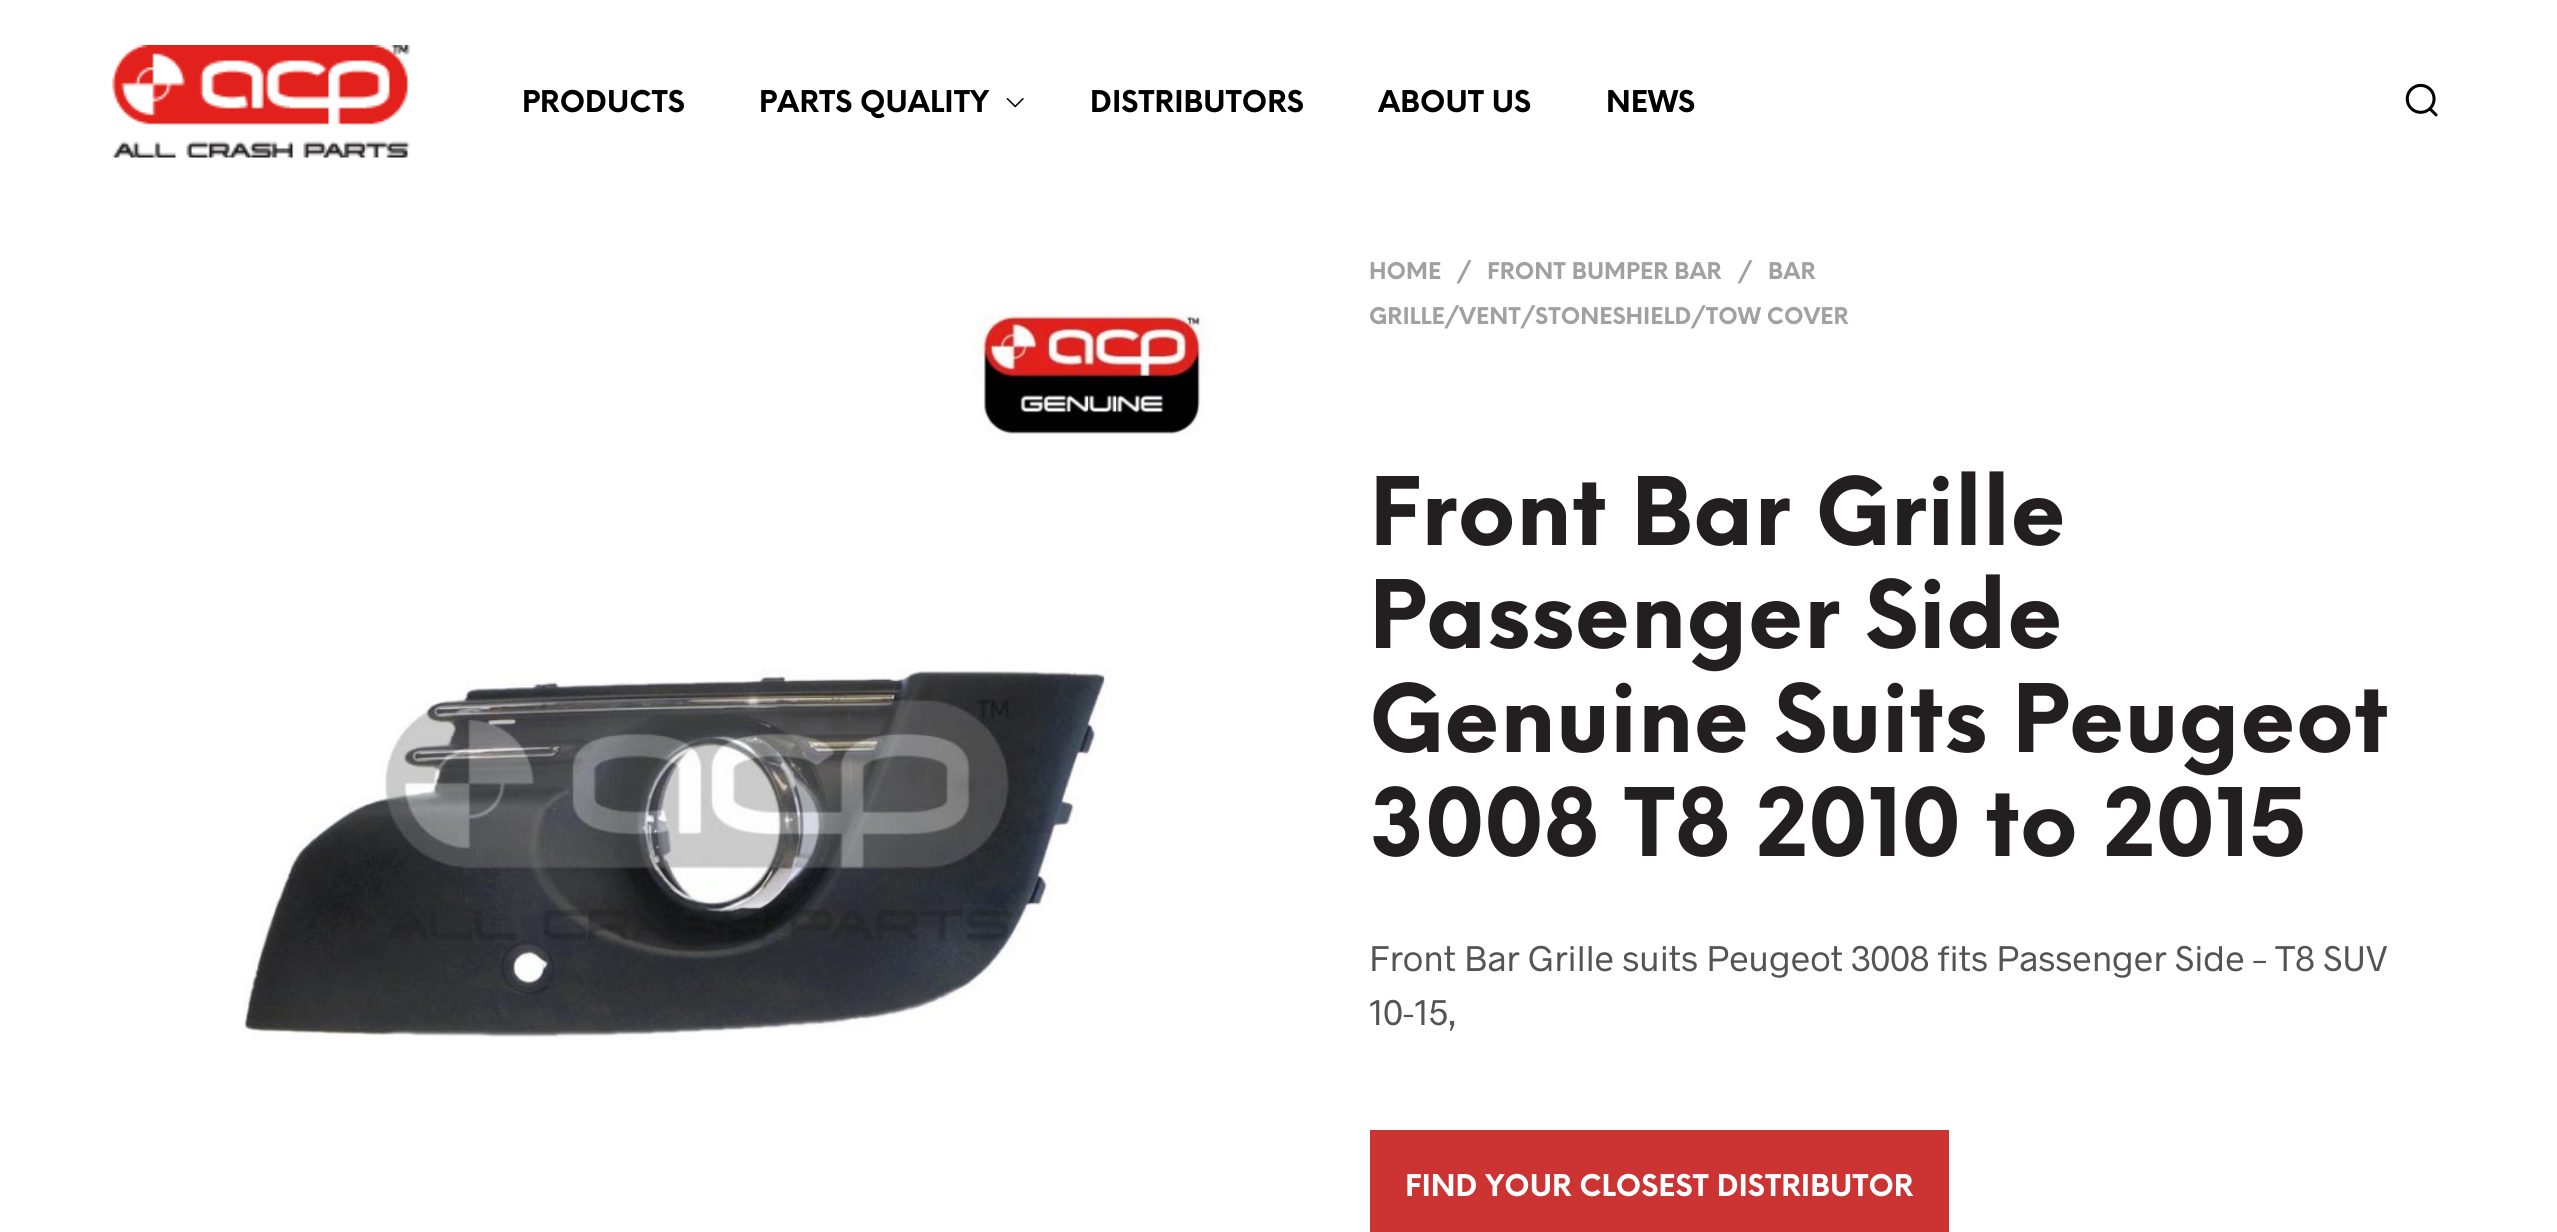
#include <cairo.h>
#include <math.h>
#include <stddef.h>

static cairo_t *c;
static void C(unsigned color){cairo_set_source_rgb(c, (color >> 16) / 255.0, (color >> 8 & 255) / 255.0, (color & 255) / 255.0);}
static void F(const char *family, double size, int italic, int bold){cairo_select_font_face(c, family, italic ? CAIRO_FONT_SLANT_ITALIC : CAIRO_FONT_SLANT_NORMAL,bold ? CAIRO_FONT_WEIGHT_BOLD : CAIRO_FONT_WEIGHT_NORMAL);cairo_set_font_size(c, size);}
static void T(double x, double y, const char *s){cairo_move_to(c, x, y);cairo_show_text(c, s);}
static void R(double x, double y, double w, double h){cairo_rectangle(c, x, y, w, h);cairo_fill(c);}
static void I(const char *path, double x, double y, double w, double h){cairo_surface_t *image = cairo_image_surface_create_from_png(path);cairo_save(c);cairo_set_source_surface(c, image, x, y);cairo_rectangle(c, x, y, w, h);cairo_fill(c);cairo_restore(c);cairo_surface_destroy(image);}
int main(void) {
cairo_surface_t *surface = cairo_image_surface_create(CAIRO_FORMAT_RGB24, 2557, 1232);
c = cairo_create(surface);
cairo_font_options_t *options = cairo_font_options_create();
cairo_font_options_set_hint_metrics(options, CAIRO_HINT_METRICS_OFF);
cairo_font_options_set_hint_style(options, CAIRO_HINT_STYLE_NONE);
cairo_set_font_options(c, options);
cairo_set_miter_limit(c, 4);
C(0xffffff);
cairo_paint(c);
I("1.png",112,45,298,113);
F("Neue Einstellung",29.25,0,1);
C(0x000000);
T(522,112,"PRODUCTS");
T(759,112,"PARTS QUALITY");
I("2.png",1006,98,18,10);
T(1090,112,"DISTRIBUTORS");
T(1378,112,"ABOUT US");
T(1606,112,"NEWS");
I("3.png",2405,83,33,34);
I("4.png",243,312,967,728);
F("Neue Einstellung",22.5,0,1);
C(0xa1a1a1);
T(1369,279,"HOME");
T(1457,279,"/");
T(1487,279,"FRONT BUMPER BAR");
T(1738,279,"/");
T(1768,279,"BAR");
T(1369,324,"GRILLE/VENT/STONESHIELD/TOW COVER");
F("Neue Einstellung",92,0,1);
C(0x231f20);
T(1369,545,"Front Bar Grille");
T(1369,648,"Passenger Side");
T(1369,752,"Genuine Suits Peugeot");
T(1369,856,"3008 T8 2010 to 2015");
F("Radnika",36,0,0);
C(0x545454);
T(1369,971,"Front Bar Grille suits Peugeot 3008 fits Passenger Side – T8 SUV");
T(1369,1025,"10-15,");
C(0xcc3333);
R(1370,1130,579,102);
F("Neue Einstellung",29.25,0,1);
C(0xffffff);
T(1405,1196,"FIND YOUR CLOSEST DISTRIBUTOR");
cairo_surface_write_to_png(surface, "o.png");
cairo_font_options_destroy(options);
cairo_destroy(c);
cairo_surface_destroy(surface);
return 0;
}
